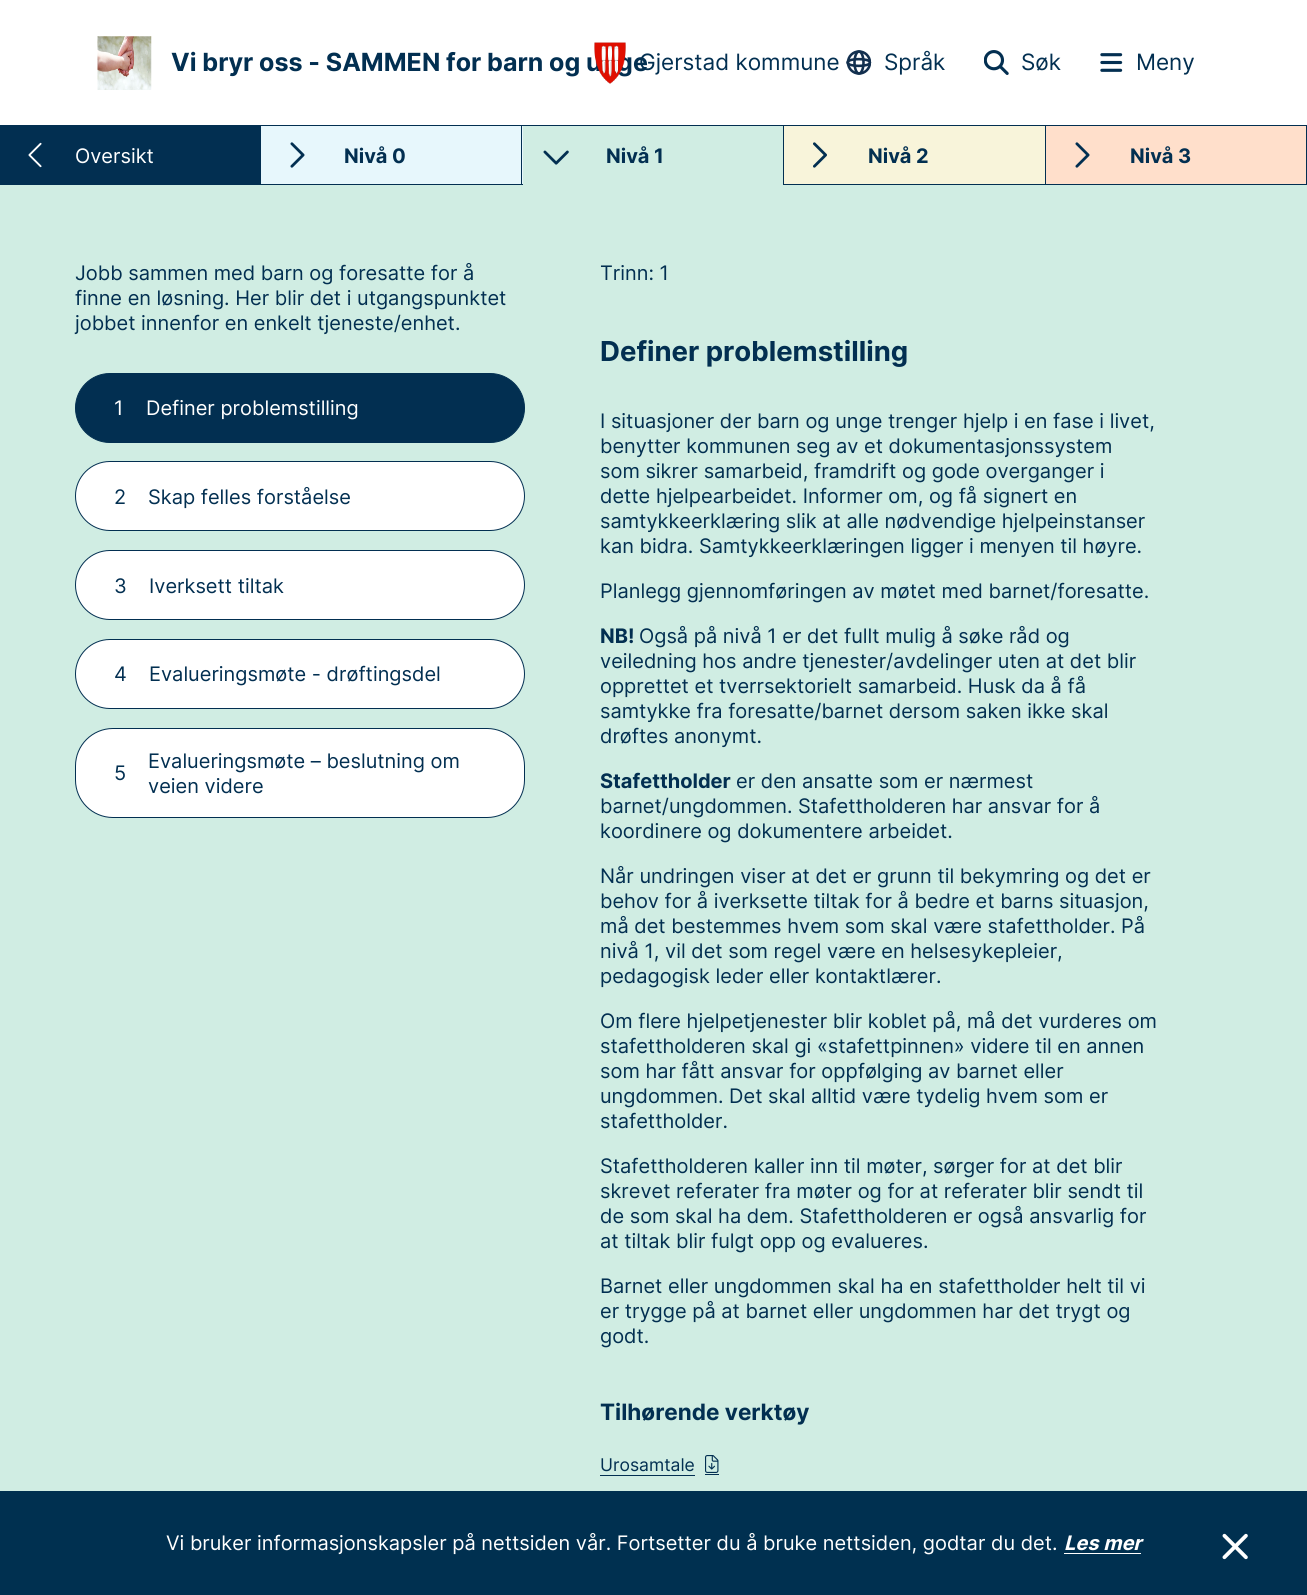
#include <cairo.h>
#include <math.h>
#include <stddef.h>

static cairo_t *c;
static void C(unsigned color){cairo_set_source_rgb(c, (color >> 16) / 255.0, (color >> 8 & 255) / 255.0, (color & 255) / 255.0);}
static void F(const char *family, double size, int italic, int bold){cairo_select_font_face(c, family, italic ? CAIRO_FONT_SLANT_ITALIC : CAIRO_FONT_SLANT_NORMAL,bold ? CAIRO_FONT_WEIGHT_BOLD : CAIRO_FONT_WEIGHT_NORMAL);cairo_set_font_size(c, size);}
static void T(double x, double y, const char *s){cairo_move_to(c, x, y);cairo_show_text(c, s);}
static void R(double x, double y, double w, double h){cairo_rectangle(c, x, y, w, h);cairo_fill(c);}
static void Q(double x, double y, double w, double h, double r){cairo_new_sub_path(c);cairo_arc(c, x + w - r, y + h - r, r, 0, M_PI / 2);cairo_arc(c, x + r, y + h - r, r, M_PI / 2, M_PI);cairo_arc(c, x + r, y + r, r, M_PI, 1.5 * M_PI);cairo_arc(c, x + w - r, y + r, r, 1.5 * M_PI, 2 * M_PI);cairo_close_path(c);}
static void I(const char *path, double x, double y, double w, double h){cairo_surface_t *image = cairo_image_surface_create_from_png(path);cairo_save(c);cairo_set_source_surface(c, image, x, y);cairo_rectangle(c, x, y, w, h);cairo_fill(c);cairo_restore(c);cairo_surface_destroy(image);}
int main(void) {
cairo_surface_t *surface = cairo_image_surface_create(CAIRO_FORMAT_RGB24, 1307, 1595);
c = cairo_create(surface);
cairo_font_options_t *options = cairo_font_options_create();
cairo_font_options_set_hint_metrics(options, CAIRO_HINT_METRICS_OFF);
cairo_font_options_set_hint_style(options, CAIRO_HINT_STYLE_NONE);
cairo_set_font_options(c, options);
cairo_set_miter_limit(c, 4);
C(0xffffff);
cairo_paint(c);
I("1.png",97,36,55,54);
F("Inter",25,0,1);
C(0x022f51);
T(171,71,"Vi bryr oss - SAMMEN for barn og unge");
I("2.png",594,42,32,42);
F("Inter",22.5,0,0);
T(639,70,"Gjerstad kommune");
cairo_save(c);
cairo_rectangle(c,846,50,25,25);
cairo_clip(c);
cairo_arc(c,859,62.5,11,0,2 * M_PI);
C(0x122f4e);
cairo_set_line_width(c,2.6);
cairo_stroke(c);
cairo_restore(c);
cairo_new_path(c);
cairo_move_to(c,859,51.5);
cairo_curve_to(c,861.5,51.5,863.5,56.5,863.5,62.5);
cairo_curve_to(c,863.5,68.5,861.5,73.5,859,73.5);
cairo_curve_to(c,856.5,73.5,854.5,68.5,854.5,62.5);
cairo_curve_to(c,854.5,56.5,856.5,51.5,859,51.5);
cairo_close_path(c);
C(0x122f4e);
cairo_set_line_width(c,2.6);
cairo_stroke(c);
cairo_new_path(c);
cairo_move_to(c,870,62.5);
cairo_curve_to(c,870,67,847.5,67,847.5,62.5);
cairo_curve_to(c,847.5,58,870,58,870,62.5);
cairo_close_path(c);
cairo_stroke(c);
C(0x022f51);
T(884,70,"Språk");
I("3.png",984,50,25,25);
T(1021,70,"Søk");
I("4.png",1100,53,23,19);
T(1136,70,"Meny");
C(0xd0ede3);
R(0,126,1307,1365);
C(0x022f51);
R(0,125,261,60);
I("5.png",28,142,14,26);
F("Inter",20,0,0);
C(0xffffff);
T(75,163,"Oversikt");
C(0xe7f7fc);
R(261,126,262,58);
C(0x022f51);
R(261,125,1046,1);
R(521,125,1,60);
R(261,184,262,1);
I("6.png",290,142,15,26);
F("Inter",20,0,1);
T(344,163,"Nivå 0");
R(783,125,1,60);
I("7.png",543,150,26,15);
T(606,163,"Nivå 1");
C(0xf8f4da);
R(784,126,261,58);
C(0x022f51);
R(1045,125,1,60);
R(784,184,262,1);
I("8.png",813,142,14,26);
T(868,163,"Nivå 2");
C(0xffdfcb);
R(1046,126,260,58);
C(0x022f51);
R(1306,125,1,60);
R(1046,184,261,1);
I("9.png",1075,142,15,26);
T(1130,163,"Nivå 3");
F("Inter",20,0,0);
T(75,280,"Jobb sammen med barn og foresatte for å");
T(75,305,"finne en løsning. Her blir det i utgangspunktet");
T(75,330,"jobbet innenfor en enkelt tjeneste/enhet.");
Q(75.5,373.5,449,69,34.5);
cairo_fill_preserve(c);
cairo_set_line_width(c,1);
cairo_stroke(c);
C(0xffffff);
T(114,415,"1");
T(146,415,"Definer problemstilling");
Q(75.5,461.5,449,69,34.5);
cairo_fill_preserve(c);
C(0x022f51);
cairo_stroke(c);
T(114,504,"2");
T(148,504,"Skap felles forståelse");
C(0xffffff);
Q(75.5,550.5,449,69,34.5);
cairo_fill_preserve(c);
C(0x022f51);
cairo_stroke(c);
T(114,593,"3");
T(149,593,"Iverksett tiltak");
C(0xffffff);
Q(75.5,639.5,449,69,34.5);
cairo_fill_preserve(c);
C(0x022f51);
cairo_stroke(c);
T(114,681,"4");
T(149,681,"Evalueringsmøte - drøftingsdel");
C(0xffffff);
Q(75.5,728.5,449,89,37.5);
cairo_fill_preserve(c);
C(0x022f51);
cairo_stroke(c);
T(114,780,"5");
T(148,768,"Evalueringsmøte – beslutning om");
T(148,793,"veien videre");
T(600,280,"Trinn: 1");
F("Inter",27.5,0,1);
T(600,361,"Definer problemstilling");
F("Inter",20,0,0);
T(600,428,"I situasjoner der barn og unge trenger hjelp i en fase i livet,");
T(600,453,"benytter kommunen seg av et dokumentasjonssystem");
T(600,478,"som sikrer samarbeid, framdrift og gode overganger i");
T(600,503,"dette hjelpearbeidet. Informer om, og få signert en");
T(600,528,"samtykkeerklæring slik at alle nødvendige hjelpeinstanser");
T(600,553,"kan bidra. Samtykkeerklæringen ligger i menyen til høyre.");
T(600,598,"Planlegg gjennomføringen av møtet med barnet/foresatte.");
F("Inter",20,0,1);
T(600,643,"NB!");
F("Inter",20,0,0);
T(639,643,"Også på nivå 1 er det fullt mulig å søke råd og");
T(600,668,"veiledning hos andre tjenester/avdelinger uten at det blir");
T(600,693,"opprettet et tverrsektorielt samarbeid. Husk da å få");
T(600,718,"samtykke fra foresatte/barnet dersom saken ikke skal");
T(600,743,"drøftes anonymt.");
F("Inter",20,0,1);
T(600,788,"Stafettholder");
F("Inter",20,0,0);
T(736,788,"er den ansatte som er nærmest");
T(600,813,"barnet/ungdommen. Stafettholderen har ansvar for å");
T(600,838,"koordinere og dokumentere arbeidet.");
T(600,883,"Når undringen viser at det er grunn til bekymring og det er");
T(600,908,"behov for å iverksette tiltak for å bedre et barns situasjon,");
T(600,933,"må det bestemmes hvem som skal være stafettholder. På");
T(600,958,"nivå 1, vil det som regel være en helsesykepleier,");
T(600,983,"pedagogisk leder eller kontaktlærer.");
T(600,1028,"Om flere hjelpetjenester blir koblet på, må det vurderes om");
T(600,1053,"stafettholderen skal gi «stafettpinnen» videre til en annen");
T(600,1078,"som har fått ansvar for oppfølging av barnet eller");
T(600,1103,"ungdommen. Det skal alltid være tydelig hvem som er");
T(600,1128,"stafettholder.");
T(600,1173,"Stafettholderen kaller inn til møter, sørger for at det blir");
T(600,1198,"skrevet referater fra møter og for at referater blir sendt til");
T(600,1223,"de som skal ha dem. Stafettholderen er også ansvarlig for");
T(600,1248,"at tiltak blir fulgt opp og evalueres.");
T(600,1293,"Barnet eller ungdommen skal ha en stafettholder helt til vi");
T(600,1318,"er trygge på at barnet eller ungdommen har det trygt og");
T(600,1343,"godt.");
F("Inter",22.5,0,1);
T(600,1420,"Tilhørende verktøy");
R(600,1475,95,1);
R(705,1474,14,1);
F("Inter",17.5,0,0);
T(600,1471,"Urosamtale");
I("10.png",705,1455,14,18);
C(0x003050);
R(0,1491,1307,104);
F("Inter",20,0,0);
C(0xffffff);
T(166,1550,"Vi bruker informasjonskapsler på nettsiden vår. Fortsetter du å bruke nettsiden, godtar du det.");
F("Inter",20,1,1);
T(1064,1550,"Les mer");
R(1064,1553,77,1);
I("11.png",1222,1533,26,27);
cairo_surface_write_to_png(surface, "o.png");
cairo_font_options_destroy(options);
cairo_destroy(c);
cairo_surface_destroy(surface);
return 0;
}
